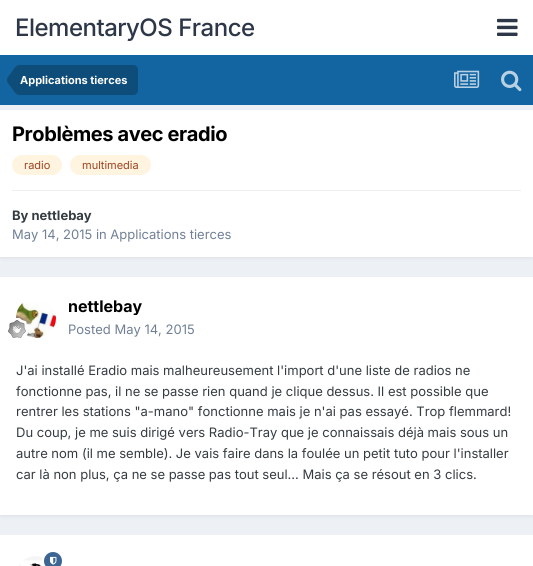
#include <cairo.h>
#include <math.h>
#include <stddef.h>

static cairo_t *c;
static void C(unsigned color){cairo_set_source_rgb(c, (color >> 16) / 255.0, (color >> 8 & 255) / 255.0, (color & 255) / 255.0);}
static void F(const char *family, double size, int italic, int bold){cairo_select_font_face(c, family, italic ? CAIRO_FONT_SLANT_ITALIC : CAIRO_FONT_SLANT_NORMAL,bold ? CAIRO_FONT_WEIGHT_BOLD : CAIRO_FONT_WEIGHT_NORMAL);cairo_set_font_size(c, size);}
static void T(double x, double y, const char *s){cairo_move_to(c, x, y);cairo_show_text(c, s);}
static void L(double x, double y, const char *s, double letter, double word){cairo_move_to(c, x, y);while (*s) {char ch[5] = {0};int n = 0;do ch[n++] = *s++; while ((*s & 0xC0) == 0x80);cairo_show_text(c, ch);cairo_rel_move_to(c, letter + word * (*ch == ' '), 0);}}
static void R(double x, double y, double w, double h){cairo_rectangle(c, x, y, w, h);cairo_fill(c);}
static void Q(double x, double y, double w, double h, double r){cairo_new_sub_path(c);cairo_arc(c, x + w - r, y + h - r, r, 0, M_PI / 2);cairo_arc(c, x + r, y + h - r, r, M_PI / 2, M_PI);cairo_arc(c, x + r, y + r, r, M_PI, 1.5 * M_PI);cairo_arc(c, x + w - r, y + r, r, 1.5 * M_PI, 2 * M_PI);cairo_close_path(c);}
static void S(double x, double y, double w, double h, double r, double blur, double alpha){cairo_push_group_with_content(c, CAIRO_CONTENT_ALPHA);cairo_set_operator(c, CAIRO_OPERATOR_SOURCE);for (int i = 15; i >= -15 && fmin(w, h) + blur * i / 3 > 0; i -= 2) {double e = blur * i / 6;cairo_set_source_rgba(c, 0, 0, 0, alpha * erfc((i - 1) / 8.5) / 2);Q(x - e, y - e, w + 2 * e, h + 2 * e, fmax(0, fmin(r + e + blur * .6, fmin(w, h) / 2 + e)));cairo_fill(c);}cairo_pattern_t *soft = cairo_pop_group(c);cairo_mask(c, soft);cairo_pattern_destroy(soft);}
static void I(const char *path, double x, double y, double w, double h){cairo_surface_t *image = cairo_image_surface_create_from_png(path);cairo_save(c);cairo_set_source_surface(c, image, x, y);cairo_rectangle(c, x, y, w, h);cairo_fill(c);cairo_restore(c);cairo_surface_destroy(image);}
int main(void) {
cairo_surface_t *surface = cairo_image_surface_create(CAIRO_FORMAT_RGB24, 533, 566);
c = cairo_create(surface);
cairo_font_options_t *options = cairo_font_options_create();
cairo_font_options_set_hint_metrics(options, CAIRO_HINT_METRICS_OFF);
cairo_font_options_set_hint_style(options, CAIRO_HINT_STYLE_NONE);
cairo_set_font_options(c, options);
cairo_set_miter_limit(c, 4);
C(0xedf0f4);
cairo_paint(c);
C(0xffffff);
R(0,0,533,55);
F("Inter Medium",24,0,0);
C(0x2d3748);
L(15,36,"ElementaryOS France",-.5,0);
I("1.png",497,18,21,18);
C(0x1265a1);
R(0,55,533,50);
C(0x0e4c79);
cairo_new_path(c);
cairo_move_to(c,20,65);
cairo_line_to(c,133,65);
cairo_curve_to(c,136,65,138,67,138,70);
cairo_line_to(c,138,90);
cairo_curve_to(c,138,93,136,95,133,95);
cairo_line_to(c,20,95);
cairo_close_path(c);
cairo_fill(c);
cairo_new_path(c);
cairo_move_to(c,20,80);
cairo_line_to(c,20,95);
cairo_curve_to(c,15.5,95,13.5,90.5,11,87);
cairo_curve_to(c,9.5,85,7,83,7,80);
cairo_close_path(c);
cairo_move_to(c,20,80);
cairo_line_to(c,7,80);
cairo_curve_to(c,7,77,9.5,75,11,73);
cairo_curve_to(c,13.5,69.5,15.5,65,20,65);
cairo_close_path(c);
cairo_fill(c);
F("Inter",11,0,1);
C(0xffffff);
T(20,84,"Applications tierces");
I("2.png",454,70,26,18);
I("3.png",501,70,21,22);
C(0x2d3748);
S(1,113,531,145,0,2,.1);
C(0xffffff);
R(0,110,533,147);
F("Inter",20,0,1);
C(0x000000);
L(12,141,"Problèmes avec eradio",-.4,0);
C(0xfff4df);
Q(12,155,50,20,10);
cairo_fill(c);
F("Inter",11,0,0);
C(0x9c4221);
T(24,169,"radio");
C(0xfff4df);
Q(70,155,81,20,10);
cairo_fill(c);
C(0x9c4221);
T(82,169,"multimedia");
C(0xefeff0);
R(12,190,509,1);
F("Inter",13,0,1);
C(0x353c41);
T(12,220,"By nettlebay");
F("Inter",13,0,0);
C(0x718096);
T(12,239,"May 14, 2015 in Applications tierces");
C(0x2d3748);
S(1,280,531,236,0,2,.1);
C(0xffffff);
R(0,277,533,238);
I("4.png",16,302,40,36);
I("5.png",8,318,20,20);
cairo_save(c);
cairo_rectangle(c,68,297,74,18);
cairo_clip(c);
F("Inter",16,0,1);
C(0x000000);
T(68,312,"nettlebay");
cairo_restore(c);
C(0x718096);
T(68,334,"Posted May 14, 2015");
C(0x353c41);
T(16,375,"J'ai installé Eradio mais malheureusement l'import d'une liste de radios ne");
T(16,396,"fonctionne pas, il ne se passe rien quand je clique dessus. Il est possible que");
T(16,416,"rentrer les stations \"a-mano\" fonctionne mais je n'ai pas essayé. Trop flemmard!");
T(16,437,"Du coup, je me suis dirigé vers Radio-Tray que je connaissais déjà mais sous un");
T(16,458,"autre nom (il me semble). Je vais faire dans la foulée un petit tuto pour l'installer");
T(16,479,"car là non plus, ça ne se passe pas tout seul... Mais ça se résout en 3 clics.");
C(0xffffff);
R(0,535,533,31);
I("6.png",19,556,25,10);
C(0x3d6594);
cairo_arc(c,53,561,10,0,2 * M_PI);
cairo_fill_preserve(c);
C(0xffffff);
cairo_stroke(c);
I("7.png",50,556,7,9);
cairo_surface_write_to_png(surface, "o.png");
cairo_font_options_destroy(options);
cairo_destroy(c);
cairo_surface_destroy(surface);
return 0;
}
